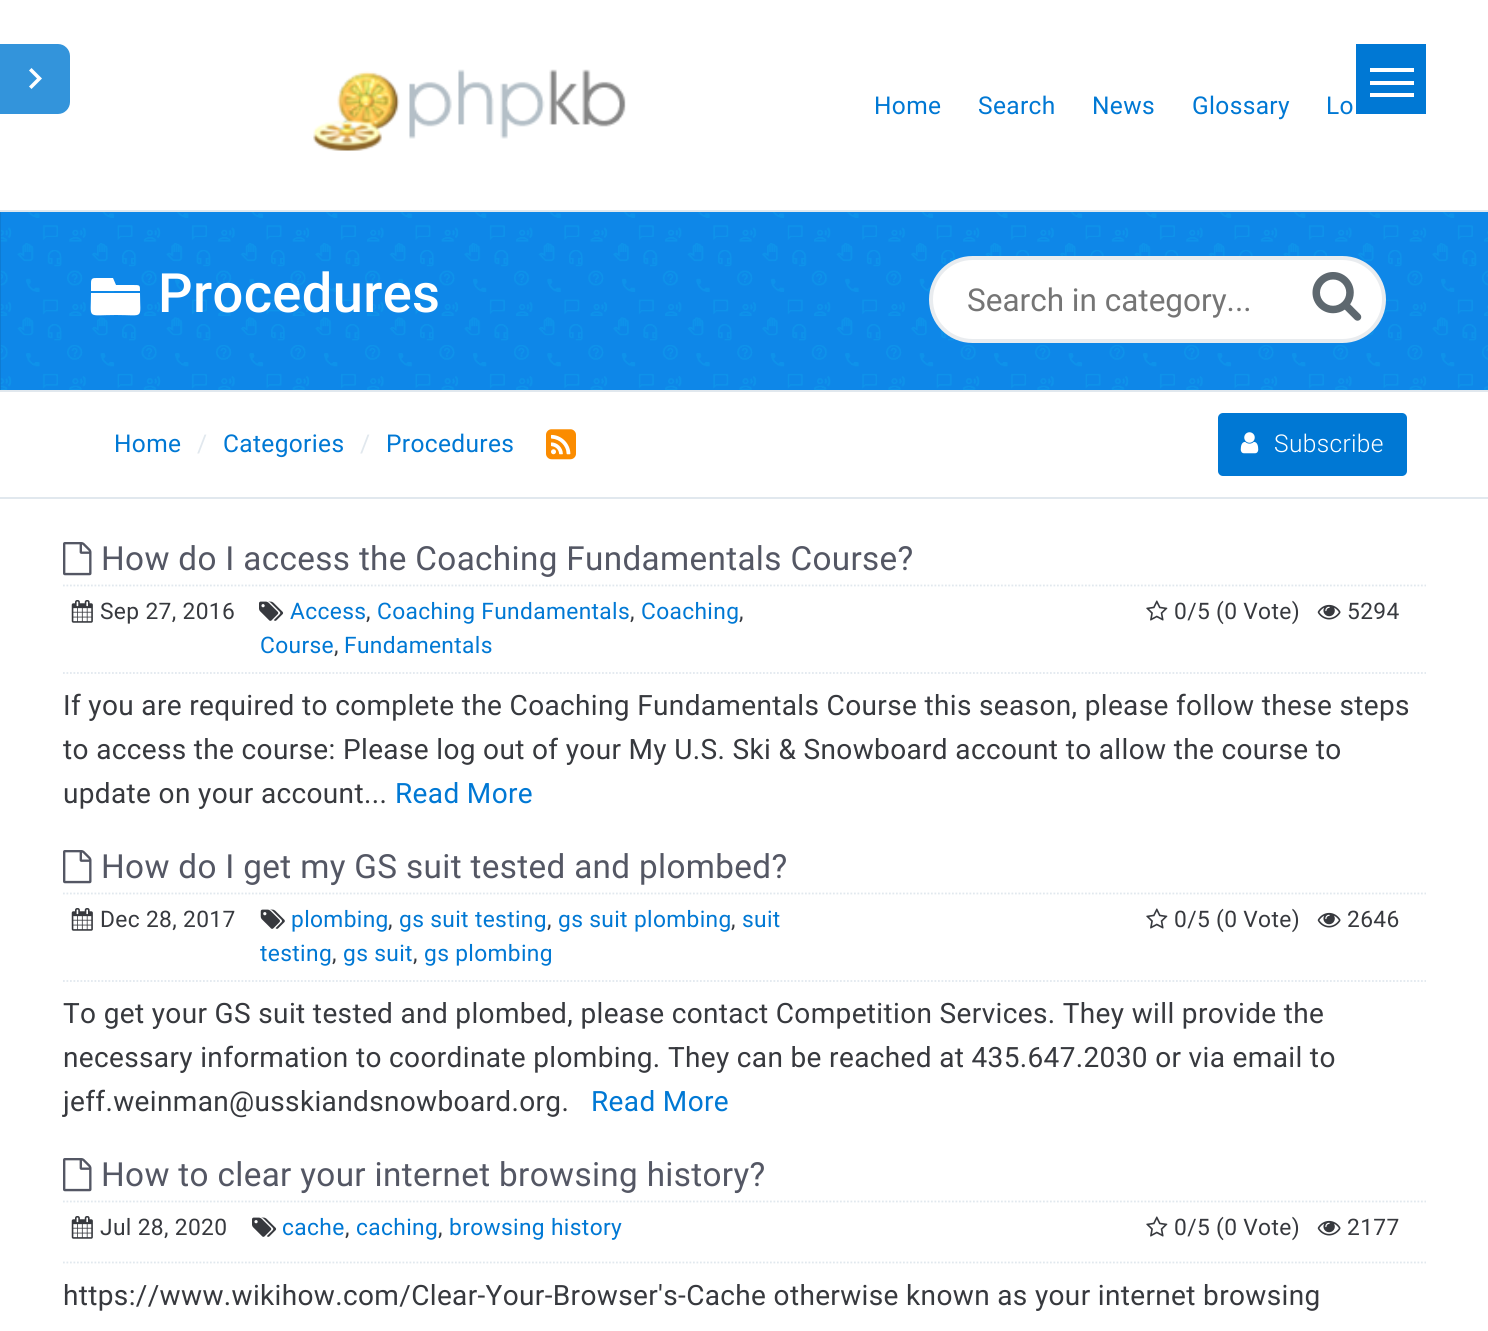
#include <cairo.h>
#include <math.h>
#include <stddef.h>

static cairo_t *c;
static void C(unsigned color){cairo_set_source_rgb(c, (color >> 16) / 255.0, (color >> 8 & 255) / 255.0, (color & 255) / 255.0);}
static void F(const char *family, double size, int italic, int bold){cairo_select_font_face(c, family, italic ? CAIRO_FONT_SLANT_ITALIC : CAIRO_FONT_SLANT_NORMAL,bold ? CAIRO_FONT_WEIGHT_BOLD : CAIRO_FONT_WEIGHT_NORMAL);cairo_set_font_size(c, size);}
static void T(double x, double y, const char *s){cairo_move_to(c, x, y);cairo_show_text(c, s);}
static void L(double x, double y, const char *s, double letter, double word){cairo_move_to(c, x, y);while (*s) {char ch[5] = {0};int n = 0;do ch[n++] = *s++; while ((*s & 0xC0) == 0x80);cairo_show_text(c, ch);cairo_rel_move_to(c, letter + word * (*ch == ' '), 0);}}
static void R(double x, double y, double w, double h){cairo_rectangle(c, x, y, w, h);cairo_fill(c);}
static void Q(double x, double y, double w, double h, double r){cairo_new_sub_path(c);cairo_arc(c, x + w - r, y + h - r, r, 0, M_PI / 2);cairo_arc(c, x + r, y + h - r, r, M_PI / 2, M_PI);cairo_arc(c, x + r, y + r, r, M_PI, 1.5 * M_PI);cairo_arc(c, x + w - r, y + r, r, 1.5 * M_PI, 2 * M_PI);cairo_close_path(c);}
static void I(const char *path, double x, double y, double w, double h){cairo_surface_t *image = cairo_image_surface_create_from_png(path);cairo_save(c);cairo_set_source_surface(c, image, x, y);cairo_rectangle(c, x, y, w, h);cairo_fill(c);cairo_restore(c);cairo_surface_destroy(image);}
int main(void) {
cairo_surface_t *surface = cairo_image_surface_create(CAIRO_FORMAT_RGB24, 1488, 1331);
c = cairo_create(surface);
cairo_font_options_t *options = cairo_font_options_create();
cairo_font_options_set_hint_metrics(options, CAIRO_HINT_METRICS_OFF);
cairo_font_options_set_hint_style(options, CAIRO_HINT_STYLE_NONE);
cairo_set_font_options(c, options);
cairo_set_miter_limit(c, 4);
C(0xffffff);
cairo_paint(c);
I("1.png",313,69,313,82);
F("Roboto",24.5,0,0);
C(0x0078d4);
L(874,114,"Home",.35,0);
L(978,114,"Search",.35,0);
L(1092,114,"News",.35,0);
L(1192,114,"Glossary",.35,0);
L(1326,114,"Lo",.35,0);
R(1356,44,70,70);
C(0xffffff);
R(1370,81,44,4);
R(1370,68,44,4);
R(1370,93,44,4);
I("2.png",0,212,1488,178);
C(0xe1e8ee);
R(0,210,1488,2);
R(0,390,1488,2);
C(0xffffff);
cairo_new_path(c);
cairo_move_to(c,91,291);
cairo_line_to(c,91,283);
cairo_curve_to(c,91,278,93,278,97,278);
cairo_line_to(c,113,278);
cairo_line_to(c,116,285);
cairo_line_to(c,133,285);
cairo_curve_to(c,140,285,140,285,140,291);
cairo_close_path(c);
cairo_move_to(c,91,293);
cairo_curve_to(c,91,320,86,315,116,315);
cairo_curve_to(c,145,315,140,320,140,293);
cairo_close_path(c);
cairo_fill(c);
F("Roboto Medium",54.25,0,0);
L(158,312,"Procedures",.35,0);
Q(931,258,453,83,41.5);
cairo_fill_preserve(c);
C(0xe9ecef);
cairo_set_line_width(c,4);
cairo_stroke(c);
F("Roboto",31.5,0,0);
C(0x757575);
T(967,311,"Search in category...");
I("3.png",1312,272,50,49);
C(0xe1e8ee);
R(0,497,1488,2);
F("Roboto",24.5,0,0);
C(0x0078d4);
L(114,452,"Home",.35,0);
C(0xe1e8ee);
L(197,452,"/",.35,0);
C(0x0078d4);
L(223,452,"Categories",.35,0);
C(0xe1e8ee);
L(360,452,"/",.35,0);
C(0x0078d4);
L(386,452,"Procedures",.35,0);
I("4.png",546,429,30,31);
Q(1218,413,189,63,5);
cairo_fill(c);
I("5.png",1240,432,19,22);
F("Roboto Light",24.5,0,0);
C(0xffffff);
L(1274,452,"Subscribe",.35,0);
C(0x3394db);
cairo_new_path(c);
cairo_move_to(c,0,44);
cairo_line_to(c,58,44);
cairo_curve_to(c,64.5,44,70,49.5,70,56);
cairo_line_to(c,70,102);
cairo_curve_to(c,70,108.5,64.5,114,58,114);
cairo_line_to(c,0,114);
cairo_close_path(c);
cairo_fill(c);
C(0xffffff);
cairo_new_path(c);
cairo_move_to(c,29,86.5);
cairo_line_to(c,37,78.5);
cairo_line_to(c,29,70.5);
cairo_line_to(c,31.5,68);
cairo_line_to(c,42,78.5);
cairo_line_to(c,31.5,89);
cairo_close_path(c);
cairo_fill(c);
I("6.png",63,542,29,34);
F("Roboto",33.25,0,0);
C(0x545764);
L(101,570,"How do I access the Coaching Fundamentals Course?",.35,0);
cairo_new_path(c);
cairo_move_to(c,63,585.5);
cairo_line_to(c,1426,585.5);
C(0xe1e8ee);
cairo_set_line_width(c,1.8);
cairo_set_dash(c,(double[]){1.75,1.75},2,0);
cairo_stroke(c);
cairo_new_path(c);
cairo_move_to(c,63,673);
cairo_line_to(c,1426,673);
cairo_stroke(c);
I("7.png",71,600,22,23);
F("Roboto",22.75,0,0);
C(0x37393e);
L(100,619,"Sep 27, 2016",.35,0);
I("8.png",259,601,25,20);
C(0x0078d4);
L(290,619,"Access",.35,0);
C(0x37393e);
L(366,619,",",.35,0);
C(0x0078d4);
L(377,619,"Coaching Fundamentals",.35,0);
C(0x37393e);
L(630,619,",",.35,0);
C(0x0078d4);
L(641,619,"Coaching",.35,0);
C(0x37393e);
L(739,619,",",.35,0);
C(0x0078d4);
L(260,653,"Course",.35,0);
C(0x37393e);
L(334,653,",",.35,0);
C(0x0078d4);
L(344,653,"Fundamentals",.35,0);
I("9.png",1146,600,22,21);
C(0x37393e);
L(1174,619,"0/5 (0 Vote)",.35,0);
I("10.png",1317,604,24,16);
L(1347,619,"5294",.35,0);
F("Roboto",28,0,0);
L(63,715,"If you are required to complete the Coaching Fundamentals Course this season, please follow these steps",.35,0);
L(63,759,"to access the course: Please log out of your My U.S. Ski & Snowboard account to allow the course to",.35,0);
L(63,803,"update on your account...",.35,0);
C(0x0078d4);
L(395,803,"Read More",.35,0);
I("6.png",63,850,29,34);
F("Roboto",33.25,0,0);
C(0x545764);
L(101,878,"How do I get my GS suit tested and plombed?",.35,0);
cairo_new_path(c);
cairo_move_to(c,63,893.5);
cairo_line_to(c,1426,893.5);
C(0xe1e8ee);
cairo_stroke(c);
cairo_new_path(c);
cairo_move_to(c,63,981);
cairo_line_to(c,1426,981);
cairo_stroke(c);
I("7.png",71,908,22,23);
F("Roboto",22.75,0,0);
C(0x37393e);
L(100,927,"Dec 28, 2017",.35,0);
I("11.png",260,909,25,20);
C(0x0078d4);
L(291,927,"plombing",.35,0);
C(0x37393e);
L(388,927,",",.35,0);
C(0x0078d4);
L(399,927,"gs suit testing",.35,0);
C(0x37393e);
L(547,927,",",.35,0);
C(0x0078d4);
L(558,927,"gs suit plombing",.35,0);
C(0x37393e);
L(731,927,",",.35,0);
C(0x0078d4);
L(742,927,"suit",.35,0);
L(260,961,"testing",.35,0);
C(0x37393e);
L(332,961,",",.35,0);
C(0x0078d4);
L(343,961,"gs suit",.35,0);
C(0x37393e);
L(413,961,",",.35,0);
C(0x0078d4);
L(424,961,"gs plombing",.35,0);
I("9.png",1146,908,22,21);
C(0x37393e);
L(1174,927,"0/5 (0 Vote)",.35,0);
I("10.png",1317,912,24,16);
L(1347,927,"2646",.35,0);
F("Roboto",28,0,0);
L(63,1023,"To get your GS suit tested and plombed, please contact Competition Services. They will provide the",.35,0);
L(63,1067,"necessary information to coordinate plombing. They can be reached at 435.647.2030 or via email to",.35,0);
L(63,1111,"jeff.weinman@usskiandsnowboard.org.",.35,0);
C(0x0078d4);
L(591,1111,"Read More",.35,0);
I("6.png",63,1158,29,34);
F("Roboto",33.25,0,0);
C(0x545764);
L(101,1186,"How to clear your internet browsing history?",.35,0);
cairo_new_path(c);
cairo_move_to(c,63,1201.5);
cairo_line_to(c,1426,1201.5);
C(0xe1e8ee);
cairo_stroke(c);
cairo_new_path(c);
cairo_move_to(c,63,1262.5);
cairo_line_to(c,1426,1262.5);
cairo_stroke(c);
I("7.png",71,1216,22,23);
F("Roboto",22.75,0,0);
C(0x37393e);
L(100,1235,"Jul 28, 2020",.35,0);
I("8.png",252,1217,25,20);
C(0x0078d4);
L(282,1235,"cache",.35,0);
C(0x37393e);
L(345,1235,",",.35,0);
C(0x0078d4);
L(356,1235,"caching",.35,0);
C(0x37393e);
L(438,1235,",",.35,0);
C(0x0078d4);
L(449,1235,"browsing history",.35,0);
I("9.png",1146,1216,22,21);
C(0x37393e);
L(1174,1235,"0/5 (0 Vote)",.35,0);
I("10.png",1317,1220,24,16);
L(1347,1235,"2177",.35,0);
F("Roboto",28,0,0);
L(63,1305,"https://www.wikihow.com/Clear-Your-Browser's-Cache otherwise known as your internet browsing",.35,0);
cairo_surface_write_to_png(surface, "o.png");
cairo_font_options_destroy(options);
cairo_destroy(c);
cairo_surface_destroy(surface);
return 0;
}
